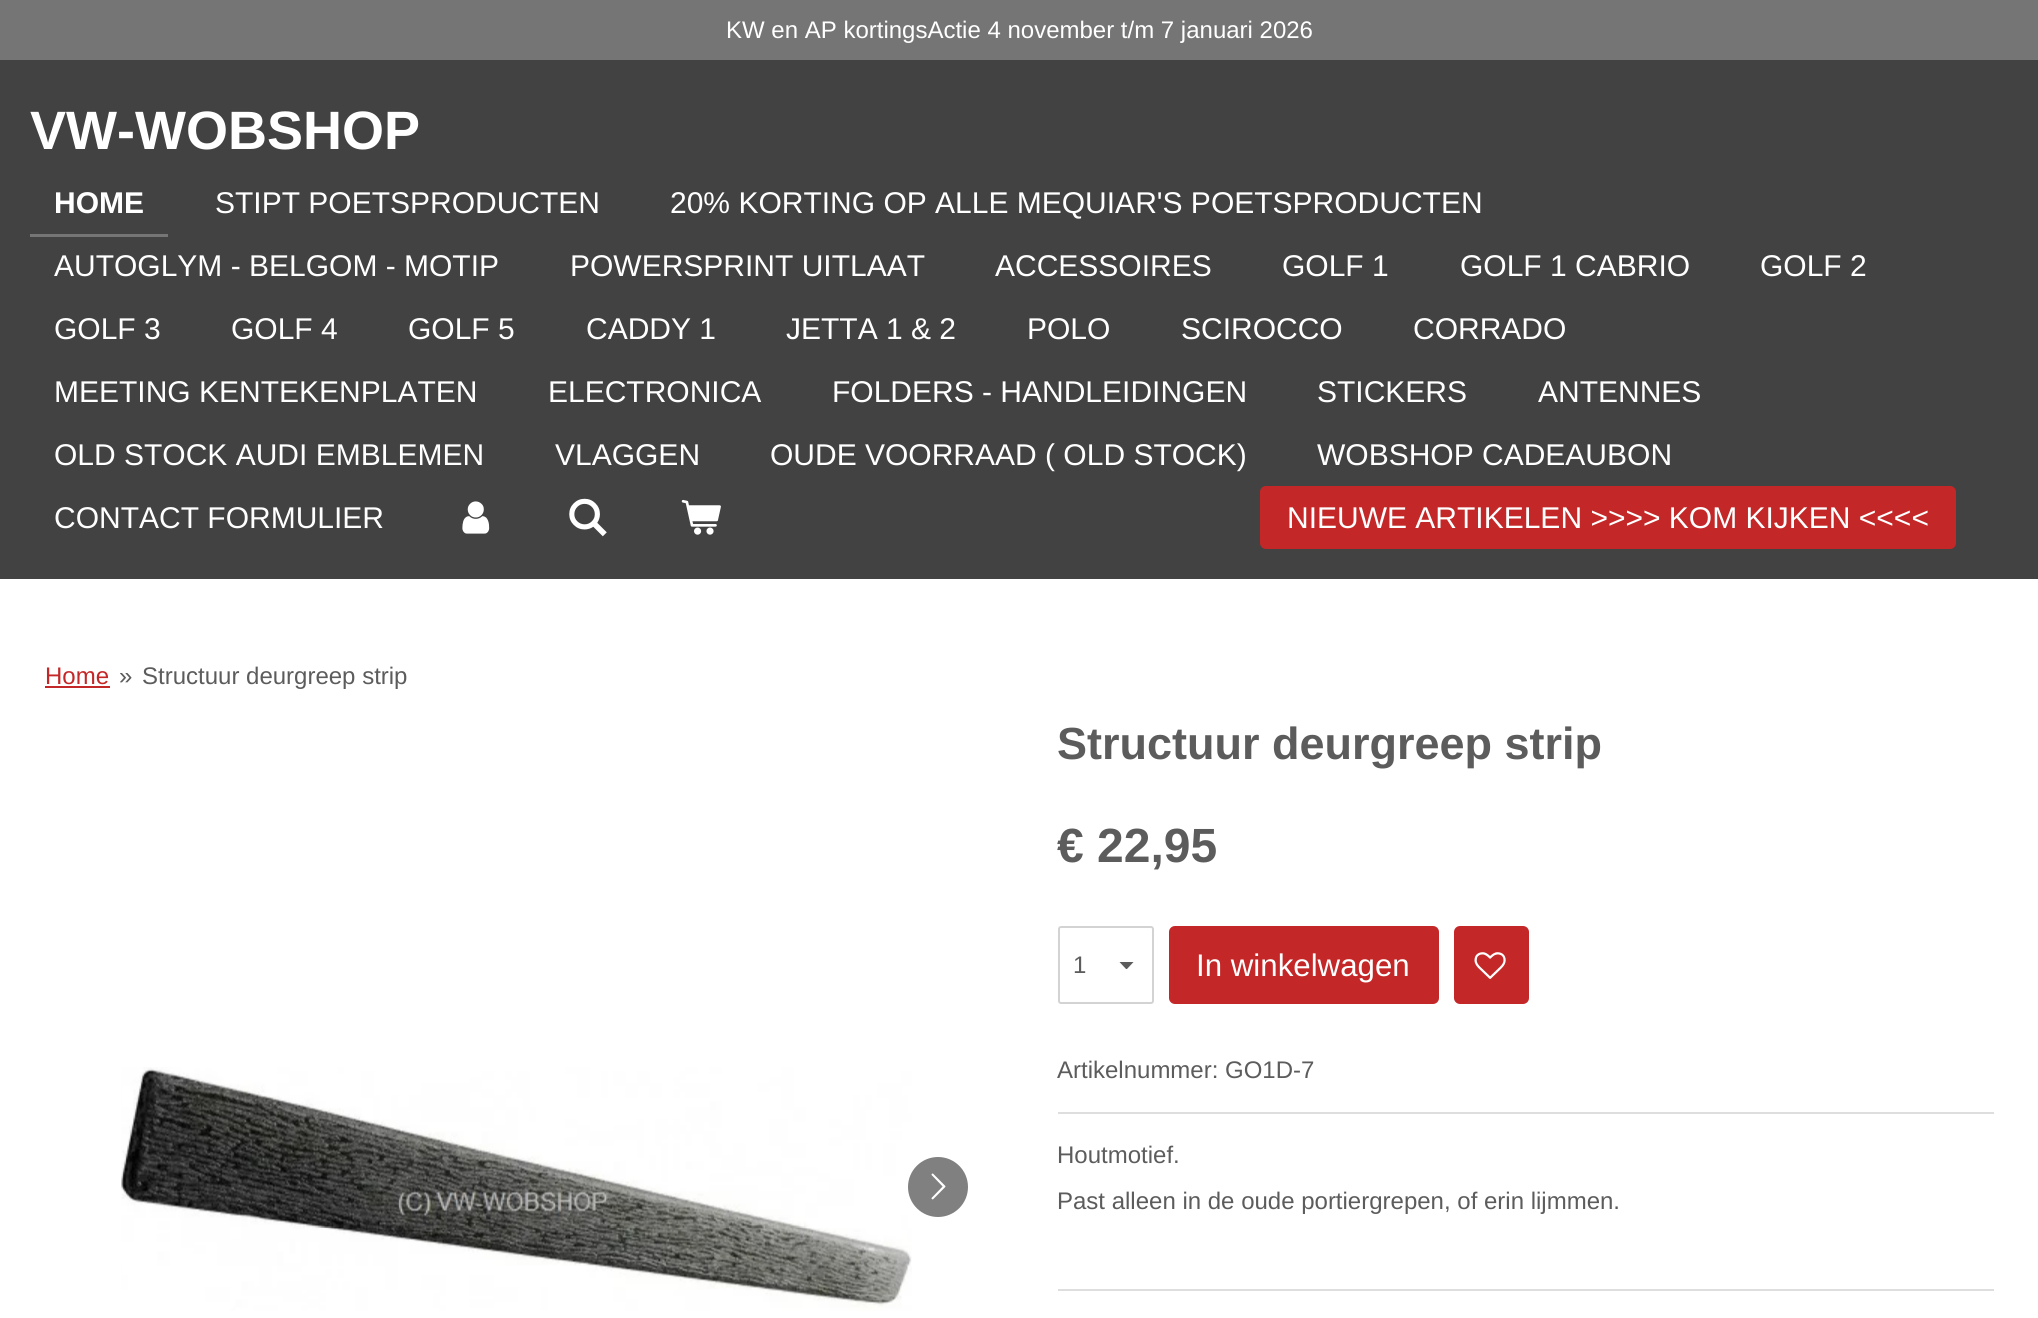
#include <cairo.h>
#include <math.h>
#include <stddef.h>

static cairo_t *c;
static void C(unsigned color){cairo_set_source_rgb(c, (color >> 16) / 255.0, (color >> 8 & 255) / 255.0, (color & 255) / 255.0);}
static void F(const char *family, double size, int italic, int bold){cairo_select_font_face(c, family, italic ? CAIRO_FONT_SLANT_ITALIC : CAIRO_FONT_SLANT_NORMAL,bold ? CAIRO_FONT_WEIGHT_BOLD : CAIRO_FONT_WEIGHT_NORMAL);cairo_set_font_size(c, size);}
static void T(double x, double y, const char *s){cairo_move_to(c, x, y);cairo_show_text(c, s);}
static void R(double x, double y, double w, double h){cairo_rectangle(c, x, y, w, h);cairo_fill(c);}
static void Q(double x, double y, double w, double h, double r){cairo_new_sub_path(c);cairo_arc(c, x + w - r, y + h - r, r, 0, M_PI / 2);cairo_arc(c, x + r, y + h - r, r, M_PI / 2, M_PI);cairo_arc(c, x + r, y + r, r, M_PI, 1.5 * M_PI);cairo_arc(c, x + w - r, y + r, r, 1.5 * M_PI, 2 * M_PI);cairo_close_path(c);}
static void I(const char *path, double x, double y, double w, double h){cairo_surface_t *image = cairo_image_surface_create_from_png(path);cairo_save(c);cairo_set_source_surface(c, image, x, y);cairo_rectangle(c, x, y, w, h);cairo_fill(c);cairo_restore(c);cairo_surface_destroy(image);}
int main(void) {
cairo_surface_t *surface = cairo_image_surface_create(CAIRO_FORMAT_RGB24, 2038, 1318);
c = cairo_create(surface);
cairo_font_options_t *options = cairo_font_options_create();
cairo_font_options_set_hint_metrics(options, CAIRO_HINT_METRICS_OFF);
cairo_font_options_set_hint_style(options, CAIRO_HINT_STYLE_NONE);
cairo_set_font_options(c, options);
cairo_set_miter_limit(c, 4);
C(0x424242);
cairo_paint(c);
C(0x757575);
R(0,0,2038,60);
F("Liberation Sans",24,0,0);
C(0xffffff);
T(726,38,"KW en AP kortingsActie 4 november t/m 7 januari 2026");
F("Liberation Sans",54,0,1);
T(30,149,"VW-WOBSHOP");
C(0x757575);
R(30,234,138,3);
F("Liberation Sans",30,0,1);
C(0xffffff);
T(54,213,"HOME");
F("Liberation Sans",30,0,0);
T(215,213,"STIPT POETSPRODUCTEN");
T(670,213,"20% KORTING OP ALLE MEQUIAR'S POETSPRODUCTEN");
T(54,276,"AUTOGLYM - BELGOM - MOTIP");
T(570,276,"POWERSPRINT UITLAAT");
T(995,276,"ACCESSOIRES");
T(1282,276,"GOLF 1");
T(1460,276,"GOLF 1 CABRIO");
T(1760,276,"GOLF 2");
T(54,339,"GOLF 3");
T(231,339,"GOLF 4");
T(408,339,"GOLF 5");
T(586,339,"CADDY 1");
T(786,339,"JETTA 1 & 2");
T(1027,339,"POLO");
T(1181,339,"SCIROCCO");
T(1413,339,"CORRADO");
T(54,402,"MEETING KENTEKENPLATEN");
T(548,402,"ELECTRONICA");
T(832,402,"FOLDERS - HANDLEIDINGEN");
T(1317,402,"STICKERS");
T(1538,402,"ANTENNES");
T(54,465,"OLD STOCK AUDI EMBLEMEN");
T(555,465,"VLAGGEN");
T(770,465,"OUDE VOORRAAD ( OLD STOCK)");
T(1317,465,"WOBSHOP CADEAUBON");
T(54,528,"CONTACT FORMULIER");
I("1.png",462,501,28,33);
I("2.png",569,498,38,39);
I("3.png",681,499,40,36);
C(0xc42727);
Q(1260,486,696,63,6);
cairo_fill(c);
C(0xffffff);
T(1287,528,"NIEUWE ARTIKELEN >>>> KOM KIJKEN <<<<");
R(0,579,2038,739);
F("Liberation Sans",24,0,0);
C(0xc42727);
T(45,684,"Home");
R(45,686,65,2);
C(0x5c5c5c);
T(119,684,"»");
T(142,684,"Structuur deurgreep strip");
F("Liberation Sans",45,0,1);
T(1057,759,"Structuur deurgreep strip");
I("4.png",121,1067,791,244);
C(0x808080);
cairo_arc(c,938,1187,30,0,2 * M_PI);
cairo_fill(c);
I("5.png",931,1173,15,27);
F("Liberation Sans",48,0,1);
C(0x5c5c5c);
T(1057,862,"€ 22,95");
cairo_save(c);
cairo_rectangle(c,1119,962,15,7);
cairo_clip(c);
cairo_new_path(c);
cairo_move_to(c,1126.5,969.5);
cairo_line_to(c,1119,961.5);
cairo_line_to(c,1134,961.5);
cairo_close_path(c);
cairo_fill(c);
cairo_restore(c);
Q(1059,927,94,76,2);
C(0xd3d3d3);
cairo_stroke(c);
F("Liberation Sans",24,0,0);
C(0x5c5c5c);
T(1073,973,"1");
C(0xc42727);
Q(1169,926,270,78,6);
cairo_fill(c);
F("Liberation Sans",31.25,0,0);
C(0xffffff);
T(1196,976,"In winkelwagen");
C(0xc42727);
Q(1454,926,75,78,6);
cairo_fill(c);
I("6.png",1474,952,32,27);
F("Liberation Sans",24,0,0);
C(0x5c5c5c);
T(1057,1078,"Artikelnummer: GO1D-7");
C(0xdedede);
R(1058,1112,936,2);
C(0x5c5c5c);
T(1057,1163,"Houtmotief.");
T(1057,1209,"Past alleen in de oude portiergrepen, of erin lijmmen.");
C(0xdedede);
R(1058,1289,936,2);
cairo_surface_write_to_png(surface, "o.png");
cairo_font_options_destroy(options);
cairo_destroy(c);
cairo_surface_destroy(surface);
return 0;
}
